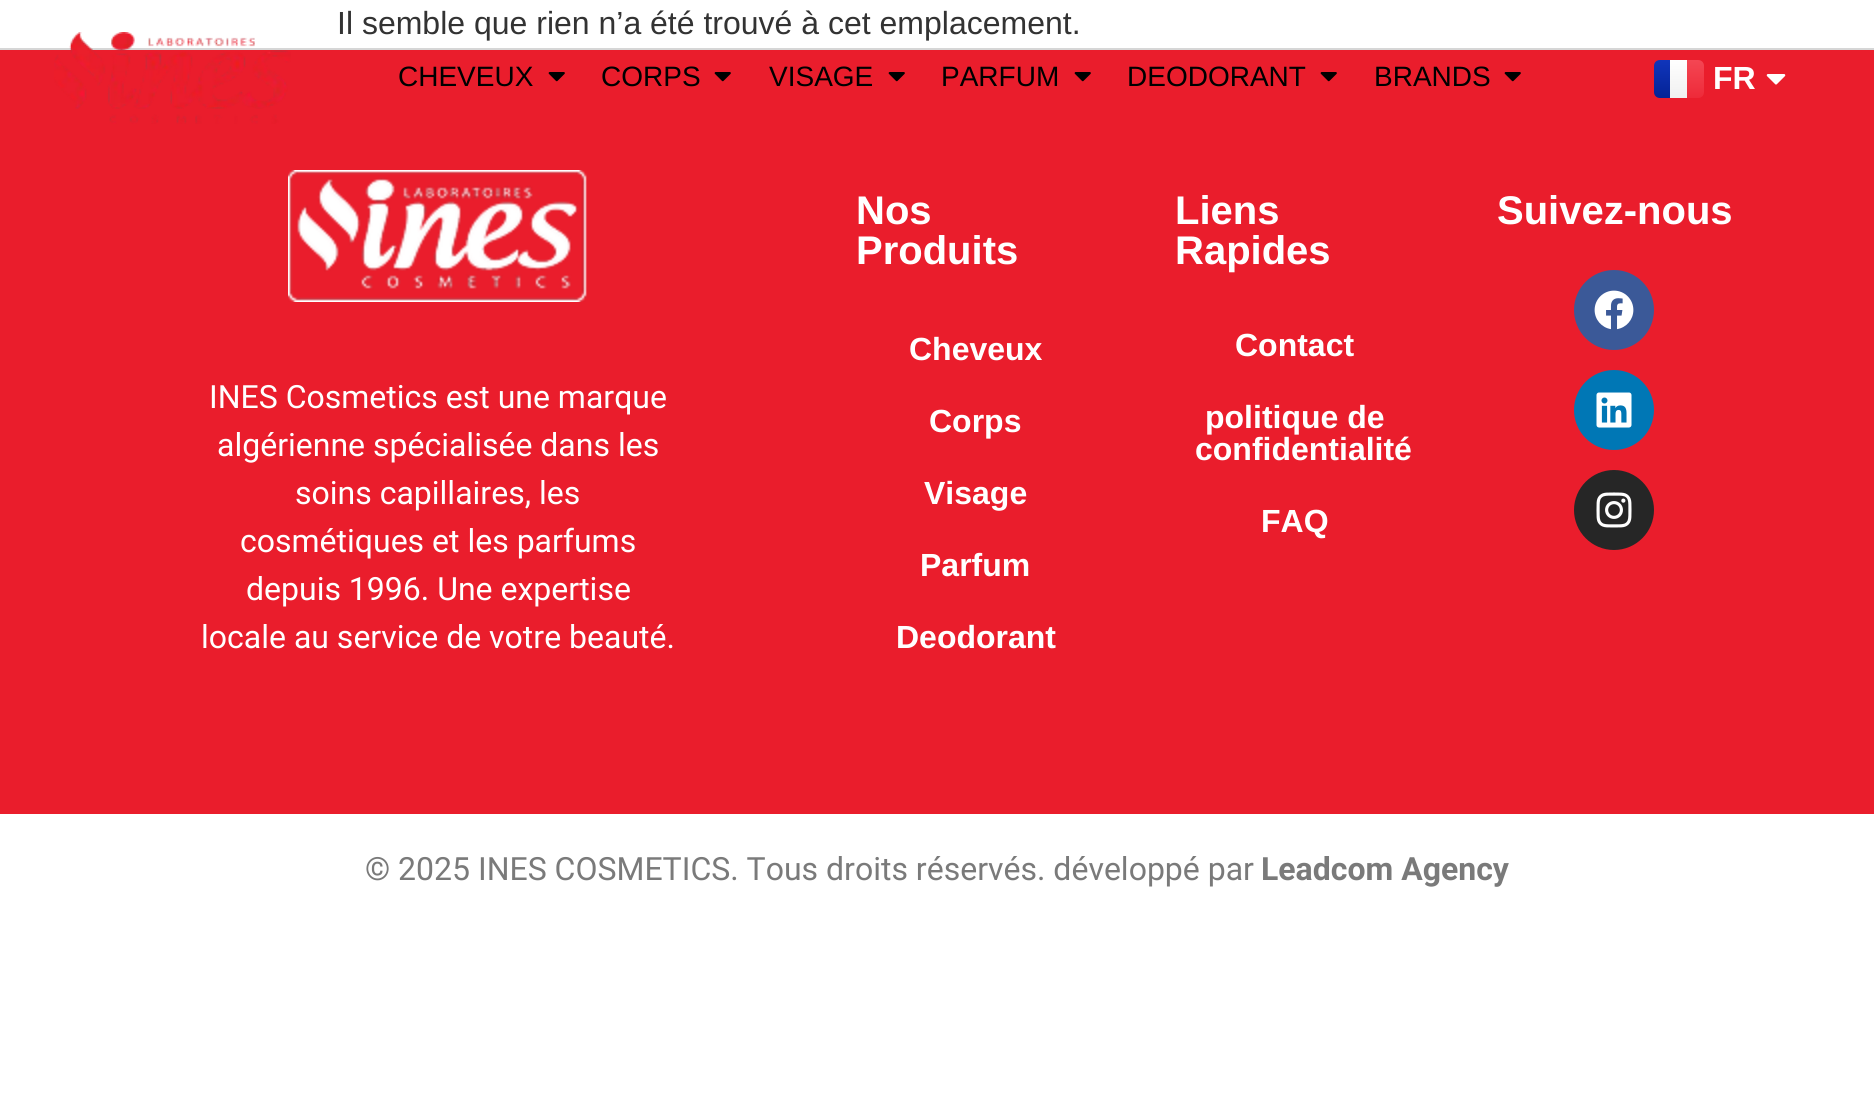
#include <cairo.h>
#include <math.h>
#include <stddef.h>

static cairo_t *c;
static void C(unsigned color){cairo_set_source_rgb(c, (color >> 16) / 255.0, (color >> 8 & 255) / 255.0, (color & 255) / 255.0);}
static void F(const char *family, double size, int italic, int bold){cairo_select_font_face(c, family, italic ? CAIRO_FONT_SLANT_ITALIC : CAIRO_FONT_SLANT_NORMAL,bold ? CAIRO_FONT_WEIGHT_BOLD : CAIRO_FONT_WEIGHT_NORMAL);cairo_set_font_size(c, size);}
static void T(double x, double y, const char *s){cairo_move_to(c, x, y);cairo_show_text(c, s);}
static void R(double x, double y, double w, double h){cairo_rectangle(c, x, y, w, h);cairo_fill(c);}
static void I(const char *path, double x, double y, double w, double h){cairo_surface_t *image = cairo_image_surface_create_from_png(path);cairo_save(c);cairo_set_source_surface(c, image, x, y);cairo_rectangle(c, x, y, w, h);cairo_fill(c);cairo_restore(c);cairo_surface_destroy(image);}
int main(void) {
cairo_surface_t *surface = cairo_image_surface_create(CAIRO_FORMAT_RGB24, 1874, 1103);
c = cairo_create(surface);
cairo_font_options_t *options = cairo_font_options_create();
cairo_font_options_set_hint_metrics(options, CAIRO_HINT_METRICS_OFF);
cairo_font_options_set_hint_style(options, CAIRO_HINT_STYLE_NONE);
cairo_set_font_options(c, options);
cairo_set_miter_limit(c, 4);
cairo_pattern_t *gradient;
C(0xffffff);
cairo_paint(c);
F("Liberation Sans",32,0,0);
C(0x333333);
T(337,34,"Il semble que rien n’a été trouvé à cet emplacement.");
C(0xea1d2c);
R(0,50,1874,764);
C(0xd6d6d6);
R(0,48,1874,2);
I("1.png",54,32,237,92);
F("Liberation Sans",28,0,0);
C(0x000000);
T(398,86,"CHEVEUX");
I("2.png",548,72,17,10);
T(601,86,"CORPS");
I("2.png",714,72,17,10);
T(769,86,"VISAGE");
I("2.png",888,72,17,10);
T(941,86,"PARFUM");
I("2.png",1074,72,17,10);
T(1127,86,"DEODORANT");
I("2.png",1320,72,17,10);
T(1374,86,"BRANDS");
I("2.png",1504,72,17,10);
gradient = cairo_pattern_create_linear(1691,60,1691,98);
cairo_pattern_add_color_stop_rgba(gradient,0,0.957,0.275,0.325,1);
cairo_pattern_add_color_stop_rgba(gradient,1,0.933,0.165,0.224,1);
cairo_set_source(c,gradient);
cairo_pattern_destroy(gradient);
cairo_new_path(c);
cairo_move_to(c,1677,60);
cairo_line_to(c,1698,60);
cairo_curve_to(c,1701.5,60,1704,62.5,1704,66);
cairo_line_to(c,1704,92);
cairo_curve_to(c,1704,95.5,1701.5,98,1698,98);
cairo_line_to(c,1677,98);
cairo_close_path(c);
cairo_fill(c);
gradient = cairo_pattern_create_linear(1661,60,1661,98);
cairo_pattern_add_color_stop_rgba(gradient,0,0.063,0.208,0.733,1);
cairo_pattern_add_color_stop_rgba(gradient,1,0.016,0.137,0.588,1);
cairo_set_source(c,gradient);
cairo_pattern_destroy(gradient);
cairo_new_path(c);
cairo_move_to(c,1660,60);
cairo_line_to(c,1670,60);
cairo_line_to(c,1670,98);
cairo_line_to(c,1660,98);
cairo_curve_to(c,1656.5,98,1654,95.5,1654,92);
cairo_line_to(c,1654,66);
cairo_curve_to(c,1654,62.5,1656.5,60,1660,60);
cairo_close_path(c);
cairo_fill(c);
gradient = cairo_pattern_create_linear(1678,60,1678,98);
cairo_pattern_add_color_stop_rgba(gradient,0,1,1,1,1);
cairo_pattern_add_color_stop_rgba(gradient,1,0.941,0.941,0.941,1);
cairo_set_source(c,gradient);
cairo_pattern_destroy(gradient);
R(1670,60,17,38);
F("Liberation Sans",32,0,1);
C(0xffffff);
T(1713,89,"FR");
I("3.png",1766,74,20,11);
I("4.png",288,170,299,132);
F("Roboto",32,0,0);
T(209,408,"INES Cosmetics est une marque");
T(217,456,"algérienne spécialisée dans les");
T(295,504,"soins capillaires, les");
T(240,552,"cosmétiques et les parfums");
T(246,600,"depuis 1996. Une expertise");
T(201,648,"locale au service de votre beauté.");
F("Liberation Sans",40,0,1);
T(856,224,"Nos");
T(856,264,"Produits");
F("Liberation Sans",32,0,1);
T(909,360,"Cheveux");
T(929,432,"Corps");
T(924,504,"Visage");
T(920,576,"Parfum");
T(896,648,"Deodorant");
F("Liberation Sans",40,0,1);
T(1175,224,"Liens");
T(1175,264,"Rapides");
F("Liberation Sans",32,0,1);
T(1235,356,"Contact");
T(1205,428,"politique de");
T(1195,460,"confidentialité");
T(1261,532,"FAQ");
F("Liberation Sans",40,0,1);
T(1497,224,"Suivez-nous");
C(0x3b5998);
cairo_new_path(c);
cairo_arc(c,1614,310,40,0,2 * M_PI);
cairo_fill(c);
I("5.png",1594,290,40,40);
C(0x0077b5);
cairo_arc(c,1614,410,40,0,2 * M_PI);
cairo_fill(c);
I("6.png",1596,392,36,36);
C(0x262626);
cairo_arc(c,1614,510,40,0,2 * M_PI);
cairo_fill(c);
I("7.png",1596,492,36,36);
F("Roboto",32,0,0);
C(0x7a7a7a);
T(365,880,"© 2025 INES COSMETICS. Tous droits réservés. développé par");
F("Roboto",32,0,1);
T(1261,880,"Leadcom Agency");
cairo_surface_write_to_png(surface, "o.png");
cairo_font_options_destroy(options);
cairo_destroy(c);
cairo_surface_destroy(surface);
return 0;
}
